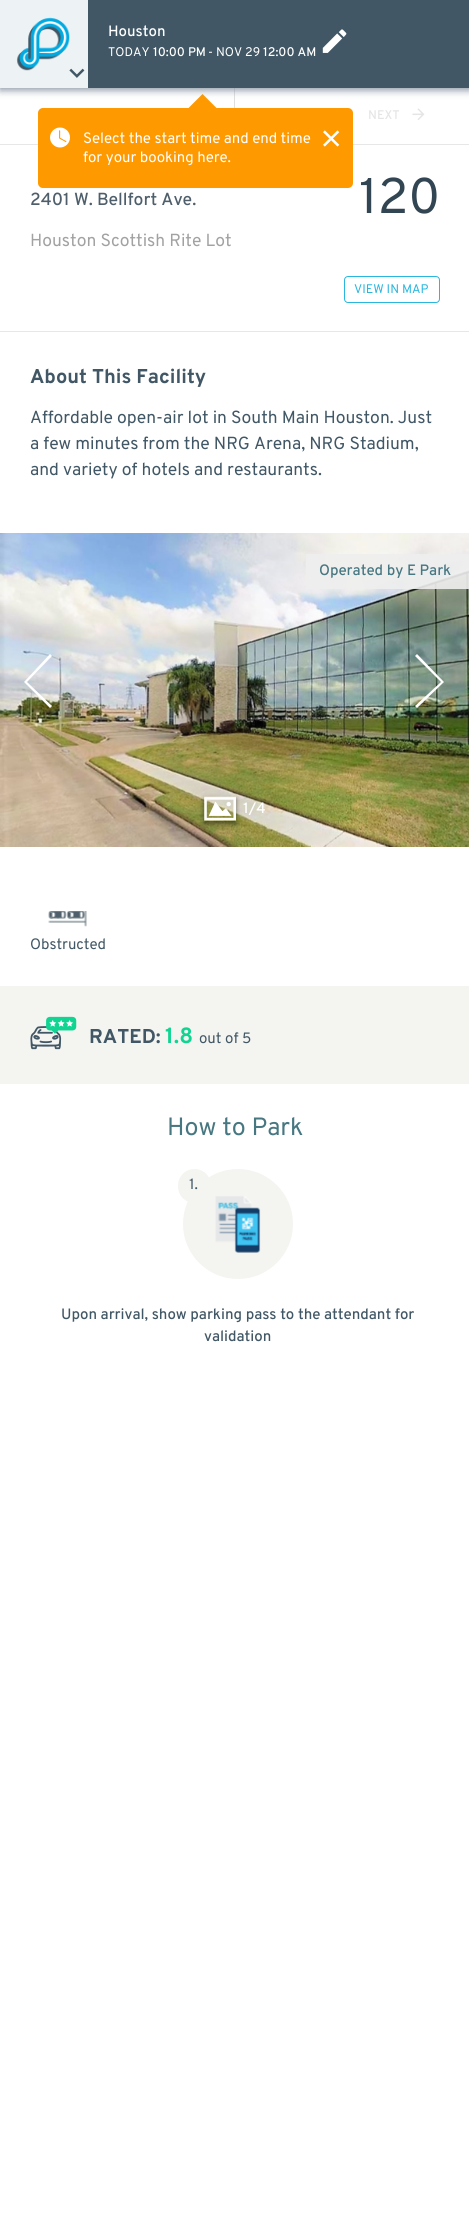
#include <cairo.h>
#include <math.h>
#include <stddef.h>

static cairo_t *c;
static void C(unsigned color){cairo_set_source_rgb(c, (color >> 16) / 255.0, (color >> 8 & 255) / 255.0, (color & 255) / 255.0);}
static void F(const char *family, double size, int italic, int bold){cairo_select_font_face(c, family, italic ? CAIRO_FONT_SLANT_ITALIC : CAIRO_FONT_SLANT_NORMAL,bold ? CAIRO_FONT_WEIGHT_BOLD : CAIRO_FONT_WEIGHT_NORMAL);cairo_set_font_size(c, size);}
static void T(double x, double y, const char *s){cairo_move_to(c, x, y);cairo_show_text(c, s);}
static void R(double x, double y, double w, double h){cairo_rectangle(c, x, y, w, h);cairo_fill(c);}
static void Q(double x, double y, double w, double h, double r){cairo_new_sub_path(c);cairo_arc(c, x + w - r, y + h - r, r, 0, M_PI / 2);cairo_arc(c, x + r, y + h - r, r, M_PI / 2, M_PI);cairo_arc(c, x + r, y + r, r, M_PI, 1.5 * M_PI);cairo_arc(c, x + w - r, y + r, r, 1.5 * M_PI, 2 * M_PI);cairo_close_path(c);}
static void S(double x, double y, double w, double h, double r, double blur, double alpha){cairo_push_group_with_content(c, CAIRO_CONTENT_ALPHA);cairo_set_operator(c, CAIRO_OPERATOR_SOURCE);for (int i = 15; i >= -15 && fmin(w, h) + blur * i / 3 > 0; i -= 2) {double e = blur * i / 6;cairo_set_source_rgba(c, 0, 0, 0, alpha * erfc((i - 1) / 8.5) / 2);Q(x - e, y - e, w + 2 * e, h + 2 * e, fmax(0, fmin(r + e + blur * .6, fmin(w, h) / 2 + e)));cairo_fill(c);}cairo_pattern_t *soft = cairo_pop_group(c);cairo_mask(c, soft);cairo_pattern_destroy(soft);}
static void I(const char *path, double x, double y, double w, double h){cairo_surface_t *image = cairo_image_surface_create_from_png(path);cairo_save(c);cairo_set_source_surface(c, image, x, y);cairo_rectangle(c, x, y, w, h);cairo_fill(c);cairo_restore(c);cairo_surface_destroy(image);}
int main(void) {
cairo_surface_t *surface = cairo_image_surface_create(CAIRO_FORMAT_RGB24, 469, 2236);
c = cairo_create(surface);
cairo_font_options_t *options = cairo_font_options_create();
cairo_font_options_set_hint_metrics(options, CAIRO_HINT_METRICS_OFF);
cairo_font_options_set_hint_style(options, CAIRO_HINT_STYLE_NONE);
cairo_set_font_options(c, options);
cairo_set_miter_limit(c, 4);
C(0xffffff);
cairo_paint(c);
C(0xdfdfdf);
R(234,88,1,20);
C(0xe8e7e7);
R(0,144,469,1);
C(0xff9900);
Q(38,108,315,80,5);
cairo_fill(c);
cairo_new_path(c);
cairo_move_to(c,217.5,109);
cairo_line_to(c,187.5,109);
cairo_line_to(c,202.5,94);
cairo_close_path(c);
cairo_fill(c);
C(0x84919e);
S(0,3,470,87,0,4,1);
C(0x415765);
R(88,0,381,88);
C(0xedf2f5);
R(0,0,88,88);
I("1.png",16,17,54,54);
I("2.png",69,68,16,10);
F("Overpass Medium",15,0,0);
C(0xffffff);
T(108,36,"Houston");
F("Overpass",12.5,0,0);
T(108,56,"TODAY");
F("Overpass Medium",12.5,0,0);
T(153,56,"10:00 PM");
F("Overpass",12.5,0,0);
T(208,56,"- NOV 29");
F("Overpass Medium",12.5,0,0);
T(263,56,"12:00 AM");
I("3.png",322,29,25,24);
C(0xe5e5e5);
T(368,119,"NEXT");
I("4.png",412,108,13,12);
C(0xe8e7e7);
R(0,331,469,1);
F("Overpass Medium",17.5,0,0);
C(0x4e5f6b);
T(30,205,"2401 W. Bellfort Ave.");
F("Overpass",17.5,0,0);
C(0xa2a2a2);
T(30,246,"Houston Scottish Rite Lot");
F("Overpass",50,0,0);
C(0x324552);
T(359,213,"120");
Q(344.5,276.5,95,26,3.5);
C(0x2ab7df);
cairo_set_line_width(c,1);
cairo_stroke(c);
F("Overpass",12.5,0,0);
T(354,293,"VIEW IN MAP");
F("Overpass",20,0,1);
C(0x415765);
T(30,383,"About This Facility");
F("Overpass",17.5,0,0);
T(30,423,"Affordable open-air lot in South Main Houston. Just");
T(30,449,"a few minutes from the NRG Arena, NRG Stadium,");
T(30,475,"and variety of hotels and restaurants.");
I("5.png",0,533,469,314);
cairo_set_source_rgba(c,0.937,0.937,0.937,0.9);
R(306,554,163,35);
F("Overpass Medium",15,0,0);
C(0x477781);
T(319,575,"Operated by E Park");
C(0xffffff);
cairo_new_path(c);
cairo_move_to(c,27,682);
cairo_line_to(c,52,656);
cairo_line_to(c,50,654);
cairo_line_to(c,24,682);
cairo_line_to(c,50,708);
cairo_line_to(c,52,706);
cairo_close_path(c);
cairo_fill(c);
cairo_new_path(c);
cairo_move_to(c,441,682);
cairo_line_to(c,415,656);
cairo_line_to(c,417,654);
cairo_line_to(c,444,682);
cairo_line_to(c,417,708);
cairo_line_to(c,415,706);
cairo_close_path(c);
cairo_fill(c);
cairo_save(c);
cairo_set_fill_rule(c,CAIRO_FILL_RULE_EVEN_ODD);
cairo_new_path(c);
cairo_move_to(c,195,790);
cairo_line_to(c,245,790);
cairo_line_to(c,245,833);
cairo_line_to(c,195,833);
cairo_close_path(c);
cairo_move_to(c,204,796);
cairo_line_to(c,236,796);
cairo_line_to(c,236,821);
cairo_line_to(c,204,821);
cairo_close_path(c);
cairo_clip(c);
C(0x000000);
S(204,799,32,25,0,2.5,.5);
cairo_restore(c);
I("6.png",204,797,32,24);
T(243,813,"1/4");
I("7.png",48,911,39,16);
F("Overpass",15,0,0);
C(0x415765);
T(30,949,"Obstructed");
C(0xf4f4f1);
R(0,986,469,98);
I("8.png",30,1016,47,34);
F("Overpass",20,0,1);
C(0x415765);
T(89,1043,"RATED:");
F("Overpass",22,0,1);
C(0x10d492);
T(165,1043,"1.8");
F("Overpass",15,0,0);
C(0x415765);
T(199,1043,"out of 5");
F("Overpass",25,0,0);
C(0x477781);
T(167,1135,"How to Park");
C(0xf4f4f1);
cairo_new_path(c);
cairo_arc(c,238,1224,55,0,2 * M_PI);
cairo_fill(c);
I("9.png",215,1196,46,57);
Q(178,1169,33,34,16.5);
cairo_fill(c);
F("Overpass",15,0,0);
C(0x415765);
T(189,1189,"1.");
F("Overpass Medium",15,0,0);
T(61,1319,"Upon arrival, show parking pass to the attendant for");
T(204,1341,"validation");
I("10.png",50,127,20,21);
F("Overpass",15,0,0);
C(0xffffff);
T(83,143,"Select the start time and end time");
T(83,162,"for your booking here.");
I("11.png",323,130,17,17);
cairo_surface_write_to_png(surface, "o.png");
cairo_font_options_destroy(options);
cairo_destroy(c);
cairo_surface_destroy(surface);
return 0;
}
